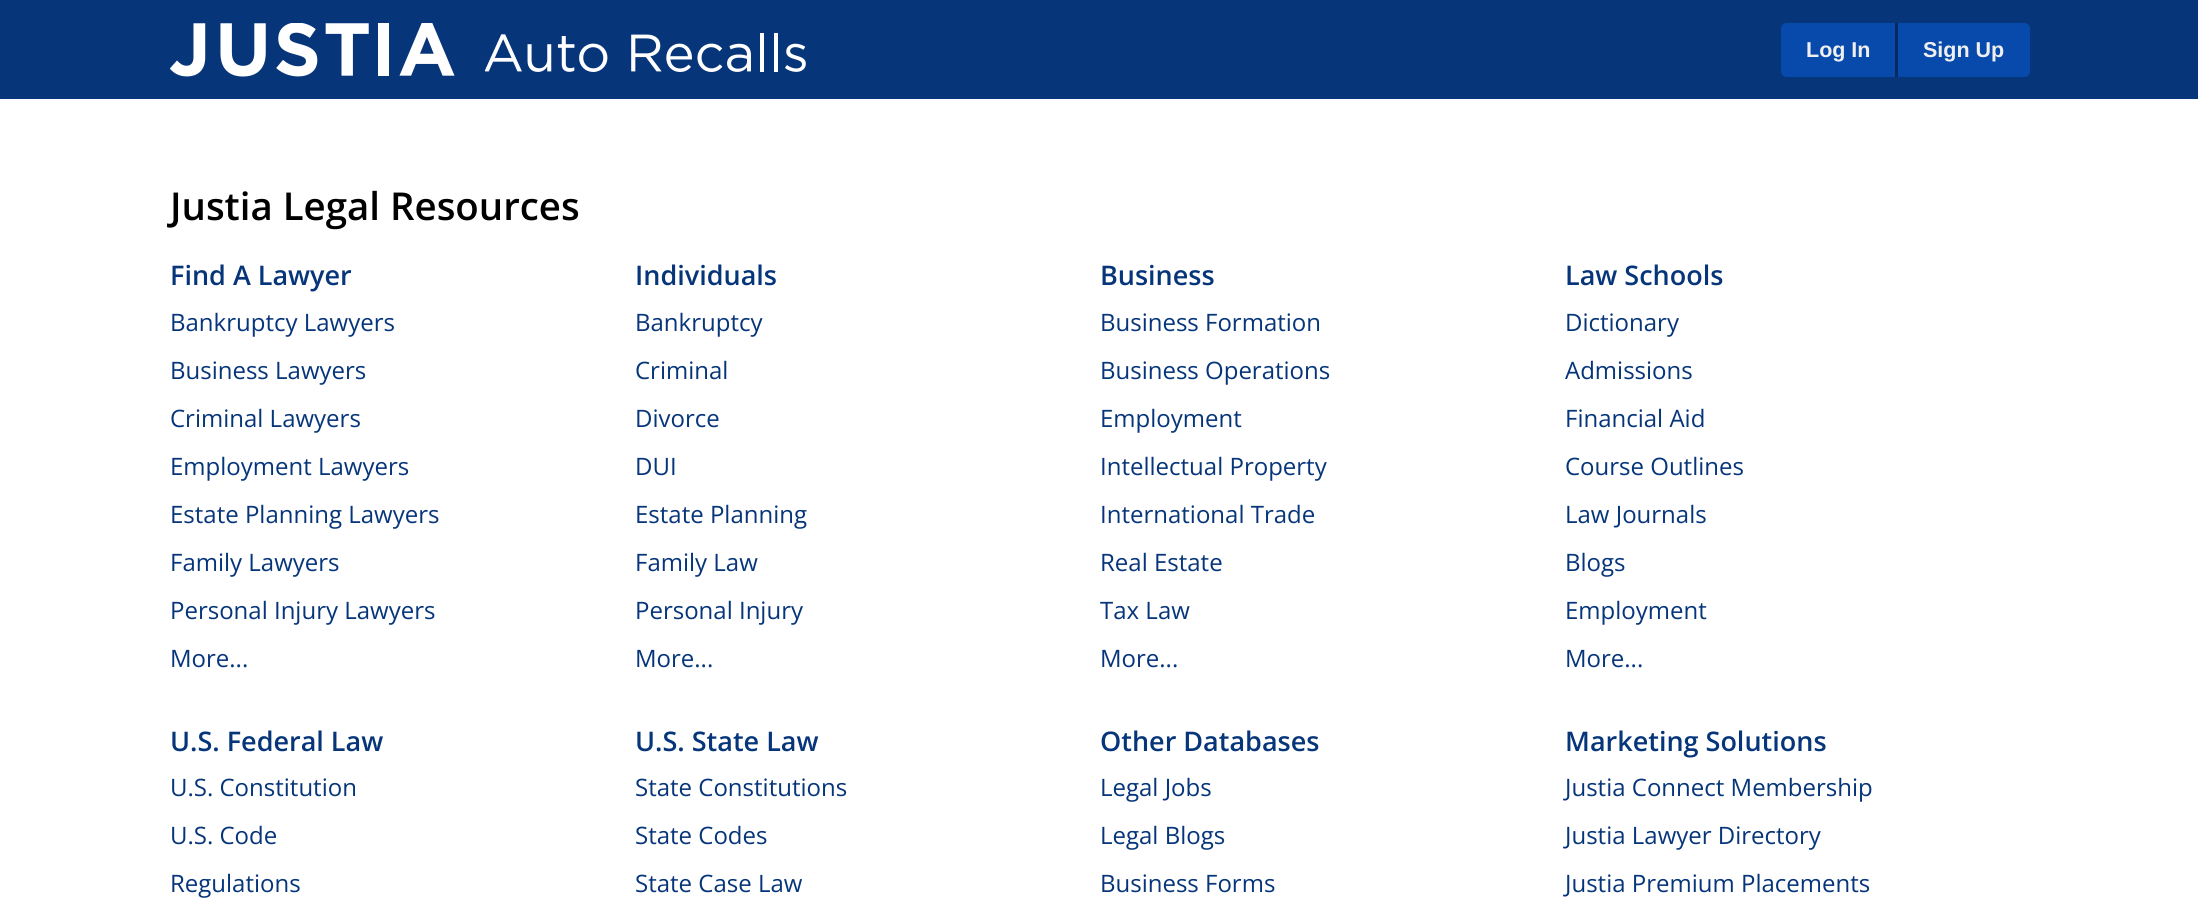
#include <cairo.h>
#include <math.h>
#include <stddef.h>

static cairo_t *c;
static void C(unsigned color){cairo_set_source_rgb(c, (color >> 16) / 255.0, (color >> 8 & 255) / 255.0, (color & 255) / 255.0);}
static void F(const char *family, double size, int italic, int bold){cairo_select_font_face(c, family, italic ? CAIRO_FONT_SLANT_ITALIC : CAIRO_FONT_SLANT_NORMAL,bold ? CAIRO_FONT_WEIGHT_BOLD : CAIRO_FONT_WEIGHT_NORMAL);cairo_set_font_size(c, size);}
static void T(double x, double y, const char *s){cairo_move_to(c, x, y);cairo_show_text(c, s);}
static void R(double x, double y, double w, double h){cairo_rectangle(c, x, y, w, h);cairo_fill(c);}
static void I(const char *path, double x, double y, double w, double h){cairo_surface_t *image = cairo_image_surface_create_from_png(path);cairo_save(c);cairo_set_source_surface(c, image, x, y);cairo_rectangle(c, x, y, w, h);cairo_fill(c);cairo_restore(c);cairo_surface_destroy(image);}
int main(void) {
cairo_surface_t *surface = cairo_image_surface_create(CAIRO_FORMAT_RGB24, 2198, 916);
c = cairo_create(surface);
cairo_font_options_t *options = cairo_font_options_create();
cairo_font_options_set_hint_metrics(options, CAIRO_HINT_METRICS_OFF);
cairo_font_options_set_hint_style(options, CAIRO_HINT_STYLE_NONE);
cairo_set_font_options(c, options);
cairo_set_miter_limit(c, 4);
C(0xffffff);
cairo_paint(c);
C(0x06357a);
R(0,0,2198,99);
I("1.png",170,23,285,54);
I("2.png",485,33,321,39);
C(0x084aab);
cairo_new_path(c);
cairo_move_to(c,1787,23);
cairo_line_to(c,1895,23);
cairo_line_to(c,1895,77);
cairo_line_to(c,1787,77);
cairo_curve_to(c,1783.5,77,1781,74.5,1781,71);
cairo_line_to(c,1781,29);
cairo_curve_to(c,1781,25.5,1783.5,23,1787,23);
cairo_close_path(c);
cairo_fill(c);
F("Liberation Sans",21.5,0,1);
C(0xefefef);
T(1806,57,"Log In");
C(0x084aab);
cairo_new_path(c);
cairo_move_to(c,1895,23);
cairo_line_to(c,2024,23);
cairo_curve_to(c,2027.5,23,2030,25.5,2030,29);
cairo_line_to(c,2030,71);
cairo_curve_to(c,2030,74.5,2027.5,77,2024,77);
cairo_line_to(c,1895,77);
cairo_close_path(c);
cairo_fill(c);
C(0x052a60);
R(1895,23,3,54);
C(0xefefef);
T(1923,57,"Sign Up");
F("Open Sans SemiBold",38.4,0,0);
C(0x000000);
T(170,220,"Justia Legal Resources");
F("Open Sans SemiBold",27,0,0);
C(0x06357a);
T(170,285,"Find A Lawyer");
F("Open Sans",24,0,0);
T(170,331,"Bankruptcy Lawyers");
T(170,379,"Business Lawyers");
T(170,427,"Criminal Lawyers");
T(170,475,"Employment Lawyers");
T(170,523,"Estate Planning Lawyers");
T(170,571,"Family Lawyers");
T(170,619,"Personal Injury Lawyers");
T(170,667,"More...");
F("Open Sans SemiBold",27,0,0);
T(635,285,"Individuals");
F("Open Sans",24,0,0);
T(635,331,"Bankruptcy");
T(635,379,"Criminal");
T(635,427,"Divorce");
T(635,475,"DUI");
T(635,523,"Estate Planning");
T(635,571,"Family Law");
T(635,619,"Personal Injury");
T(635,667,"More...");
F("Open Sans SemiBold",27,0,0);
T(1100,285,"Business");
F("Open Sans",24,0,0);
T(1100,331,"Business Formation");
T(1100,379,"Business Operations");
T(1100,427,"Employment");
T(1100,475,"Intellectual Property");
T(1100,523,"International Trade");
T(1100,571,"Real Estate");
T(1100,619,"Tax Law");
T(1100,667,"More...");
F("Open Sans SemiBold",27,0,0);
T(1565,285,"Law Schools");
F("Open Sans",24,0,0);
T(1565,331,"Dictionary");
T(1565,379,"Admissions");
T(1565,427,"Financial Aid");
T(1565,475,"Course Outlines");
T(1565,523,"Law Journals");
T(1565,571,"Blogs");
T(1565,619,"Employment");
T(1565,667,"More...");
F("Open Sans SemiBold",27,0,0);
T(170,751,"U.S. Federal Law");
F("Open Sans",24,0,0);
T(170,796,"U.S. Constitution");
T(170,844,"U.S. Code");
T(170,892,"Regulations");
F("Open Sans SemiBold",27,0,0);
T(635,751,"U.S. State Law");
F("Open Sans",24,0,0);
T(635,796,"State Constitutions");
T(635,844,"State Codes");
T(635,892,"State Case Law");
F("Open Sans SemiBold",27,0,0);
T(1100,751,"Other Databases");
F("Open Sans",24,0,0);
T(1100,796,"Legal Jobs");
T(1100,844,"Legal Blogs");
T(1100,892,"Business Forms");
F("Open Sans SemiBold",27,0,0);
T(1565,751,"Marketing Solutions");
F("Open Sans",24,0,0);
T(1565,796,"Justia Connect Membership");
T(1565,844,"Justia Lawyer Directory");
T(1565,892,"Justia Premium Placements");
cairo_surface_write_to_png(surface, "o.png");
cairo_font_options_destroy(options);
cairo_destroy(c);
cairo_surface_destroy(surface);
return 0;
}
